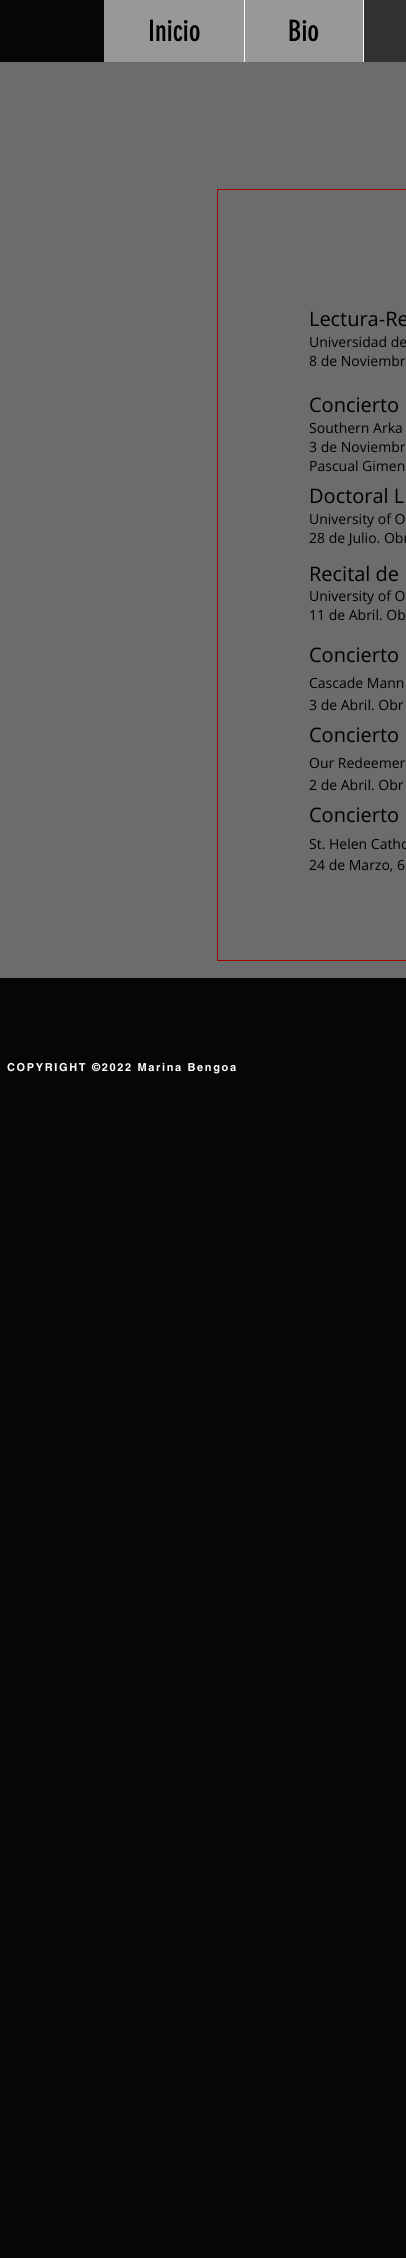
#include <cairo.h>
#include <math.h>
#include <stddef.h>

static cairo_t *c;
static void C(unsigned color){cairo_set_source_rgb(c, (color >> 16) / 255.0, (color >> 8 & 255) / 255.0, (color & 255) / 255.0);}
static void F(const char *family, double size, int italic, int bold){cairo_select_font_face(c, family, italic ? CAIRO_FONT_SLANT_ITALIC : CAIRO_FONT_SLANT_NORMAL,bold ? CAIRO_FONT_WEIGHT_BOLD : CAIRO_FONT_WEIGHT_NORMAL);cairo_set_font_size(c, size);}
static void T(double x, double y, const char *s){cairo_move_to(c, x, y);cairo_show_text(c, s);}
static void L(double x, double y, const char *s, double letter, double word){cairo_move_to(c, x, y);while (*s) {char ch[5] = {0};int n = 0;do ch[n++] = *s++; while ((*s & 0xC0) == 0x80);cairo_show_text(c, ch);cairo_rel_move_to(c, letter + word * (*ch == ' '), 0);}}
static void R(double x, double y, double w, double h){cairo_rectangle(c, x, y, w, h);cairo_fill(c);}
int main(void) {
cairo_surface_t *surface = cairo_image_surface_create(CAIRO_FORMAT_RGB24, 406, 2258);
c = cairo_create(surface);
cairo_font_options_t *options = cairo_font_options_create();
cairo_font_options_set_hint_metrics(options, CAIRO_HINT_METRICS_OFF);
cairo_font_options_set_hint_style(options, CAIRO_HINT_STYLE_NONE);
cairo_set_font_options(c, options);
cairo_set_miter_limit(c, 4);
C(0x070606);
cairo_paint(c);
C(0x989898);
R(104,0,259,62);
F("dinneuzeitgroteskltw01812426",29,0,0);
C(0x000000);
T(148,41,"Inicio");
C(0xffffff);
R(244,0,1,62);
C(0x000000);
T(288,41,"Bio");
C(0x323232);
R(364,0,42,62);
C(0xffffff);
R(363,0,1,62);
C(0x6d6c6c);
R(0,62,406,916);
cairo_rectangle(c,217.5,189.5,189,771);
C(0x9c0000);
cairo_set_line_width(c,1);
cairo_stroke(c);
F("Open Sans",20,0,0);
C(0x000000);
T(309,326,"Lectura-Re");
F("Open Sans",14,0,0);
T(309,347,"Universidad de");
T(309,366,"8 de Noviembr");
F("Open Sans",20,0,0);
T(309,412,"Concierto");
F("Open Sans",14,0,0);
T(309,433,"Southern Arka");
T(309,452,"3 de Noviembr");
T(309,471,"Pascual Gimen");
F("Open Sans",20,0,0);
T(309,503,"Doctoral L");
F("Open Sans",14,0,0);
T(309,524,"University of O");
T(309,543,"28 de Julio. Obr");
F("Open Sans",20,0,0);
T(309,581,"Recital de");
F("Open Sans",14,0,0);
T(309,601,"University of O");
T(309,620,"11 de Abril. Ob");
F("Open Sans",20,0,0);
T(309,662,"Concierto");
F("Open Sans",14,0,0);
T(309,688,"Cascade Mann");
T(309,710,"3 de Abril. Obr");
F("Open Sans",20,0,0);
T(309,742,"Concierto");
F("Open Sans",14,0,0);
T(309,768,"Our Redeemer");
T(309,790,"2 de Abril. Obr");
F("Open Sans",20,0,0);
T(309,822,"Concierto");
F("Open Sans",14,0,0);
T(309,849,"St. Helen Catho");
T(309,870,"24 de Marzo, 6");
F("helvetica",11,0,1);
C(0xffffff);
L(7,1071,"COPYRIGHT ©2022 Marina Bengoa",1.65,0);
cairo_surface_write_to_png(surface, "o.png");
cairo_font_options_destroy(options);
cairo_destroy(c);
cairo_surface_destroy(surface);
return 0;
}
